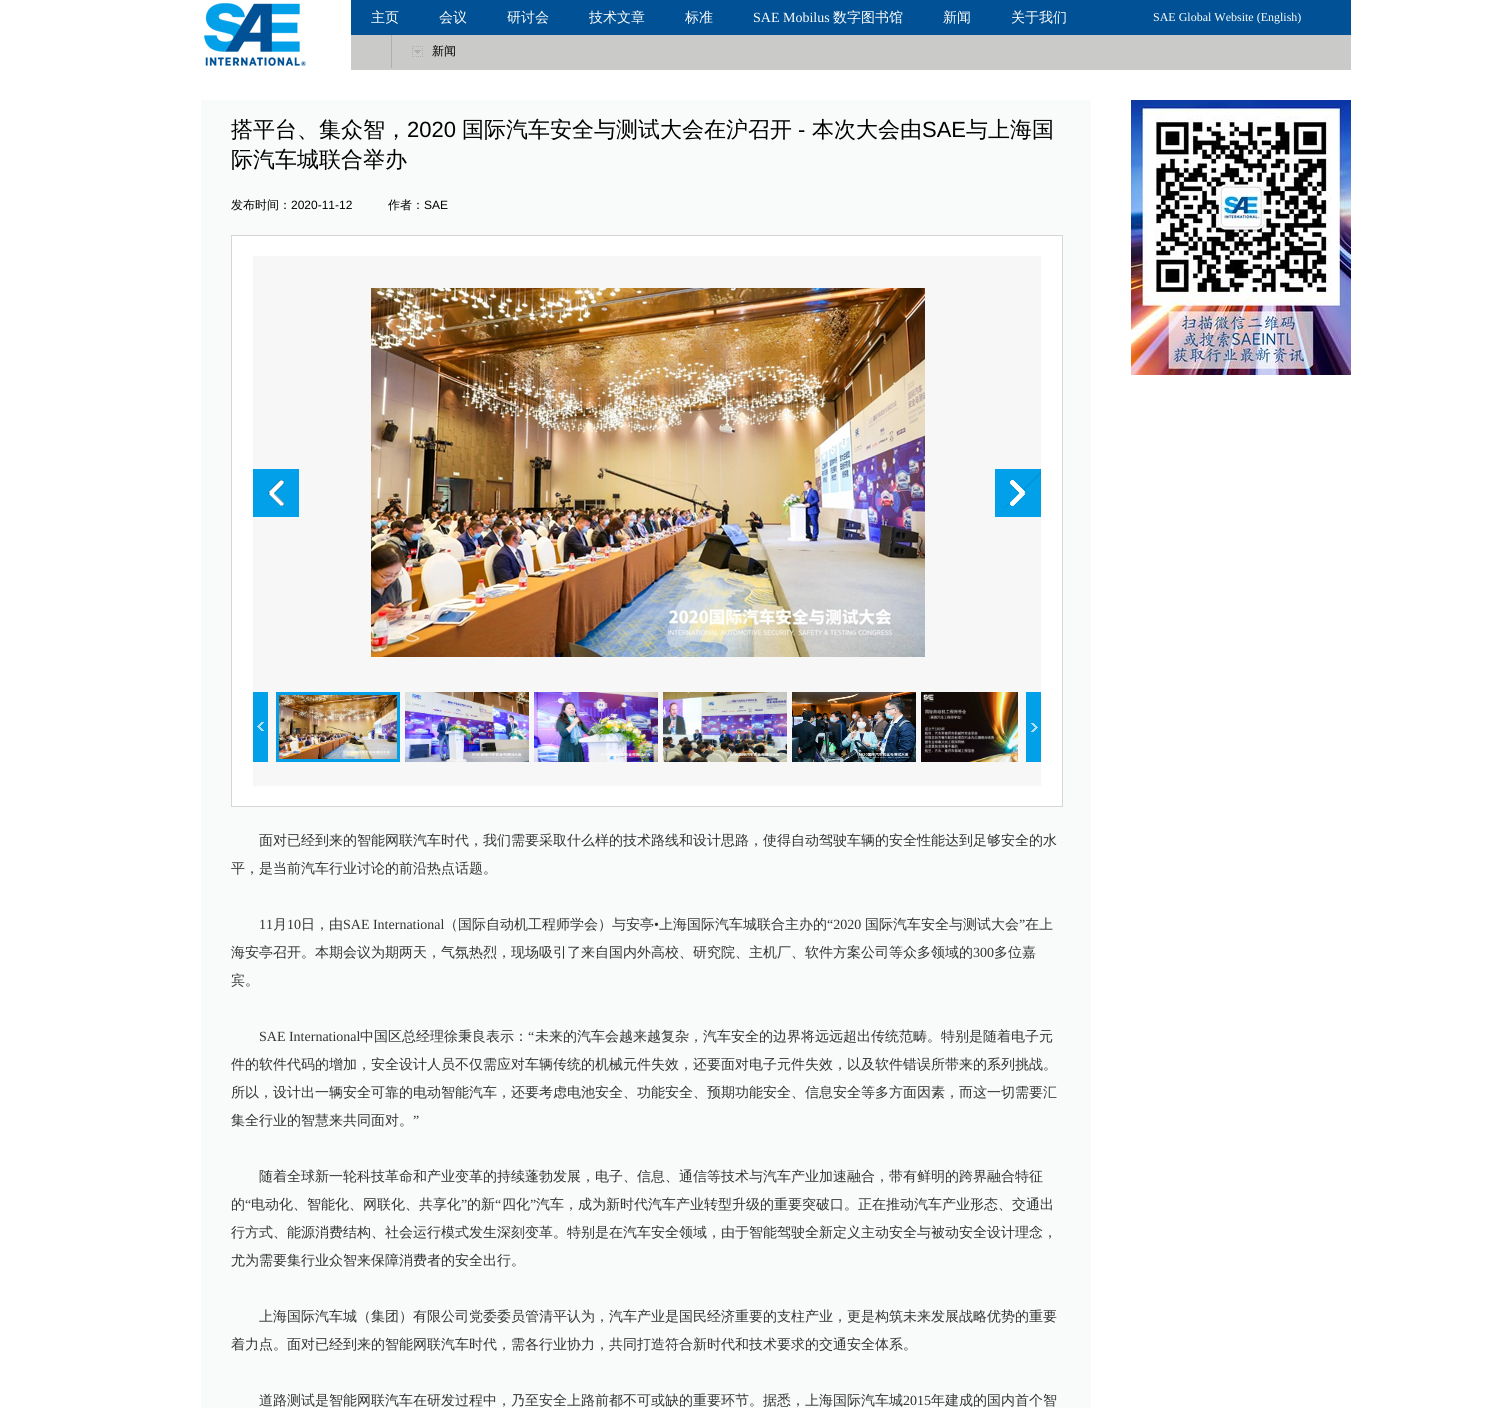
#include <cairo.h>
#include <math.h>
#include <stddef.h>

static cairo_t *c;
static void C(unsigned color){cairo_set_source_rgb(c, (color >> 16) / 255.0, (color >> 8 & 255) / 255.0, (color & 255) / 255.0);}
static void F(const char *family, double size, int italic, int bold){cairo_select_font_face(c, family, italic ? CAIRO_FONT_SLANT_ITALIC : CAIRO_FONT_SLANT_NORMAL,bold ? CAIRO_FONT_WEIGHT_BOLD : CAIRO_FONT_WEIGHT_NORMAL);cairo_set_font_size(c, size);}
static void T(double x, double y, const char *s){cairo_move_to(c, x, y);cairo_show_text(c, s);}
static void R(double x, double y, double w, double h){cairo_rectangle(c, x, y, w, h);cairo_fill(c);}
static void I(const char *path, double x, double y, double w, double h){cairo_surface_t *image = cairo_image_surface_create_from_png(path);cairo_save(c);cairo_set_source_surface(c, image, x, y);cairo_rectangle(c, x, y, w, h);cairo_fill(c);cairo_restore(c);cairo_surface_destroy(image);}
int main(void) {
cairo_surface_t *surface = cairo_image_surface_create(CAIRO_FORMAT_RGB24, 1502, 1408);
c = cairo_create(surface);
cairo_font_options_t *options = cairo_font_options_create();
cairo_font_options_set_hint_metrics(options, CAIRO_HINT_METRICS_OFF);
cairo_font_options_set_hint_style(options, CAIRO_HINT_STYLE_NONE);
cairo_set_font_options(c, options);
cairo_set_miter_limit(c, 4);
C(0xffffff);
cairo_paint(c);
I("1.png",204,3,102,63);
C(0x005195);
R(351,0,1000,35);
F("WenQuanYi Zen Hei Medium",14,0,0);
C(0xffffff);
T(371,22,"主页");
T(439,22,"会议");
T(507,22,"研讨会");
T(589,22,"技术文章");
T(685,22,"标准");
F("Liberation Serif",14,0,0);
T(753,22,"SAE Mobilus");
F("WenQuanYi Zen Hei Medium",14,0,0);
T(833,22,"数字图书馆");
T(943,22,"新闻");
T(1011,22,"关于我们");
F("Liberation Serif",12,0,0);
T(1153,21,"SAE Global Website (English)");
C(0xcacac8);
R(351,35,1000,35);
I("2.png",412,46,11,11);
C(0xb0b0b0);
R(391,35,1,33);
F("WenQuanYi Zen Hei Medium",12,0,0);
C(0x000000);
T(432,55,"新闻");
C(0xf9fafa);
R(201,100,890,1308);
F("WenQuanYi Zen Hei Medium",22,0,0);
C(0x000000);
T(231,137,"搭平台、集众智，");
F("Liberation Sans",22,0,0);
T(407,137,"2020");
F("WenQuanYi Zen Hei Medium",22,0,0);
T(462,137,"国际汽车安全与测试大会在沪召开");
F("Liberation Sans",22,0,0);
T(798,137,"-");
F("WenQuanYi Zen Hei Medium",22,0,0);
T(812,137,"本次大会由");
F("Liberation Sans",22,0,0);
T(922,137,"SAE");
F("WenQuanYi Zen Hei Medium",22,0,0);
T(966,137,"与上海国");
T(231,167,"际汽车城联合举办");
F("WenQuanYi Zen Hei Medium",12,0,0);
T(231,209,"发布时间：");
F("Liberation Sans",12,0,0);
T(291,209,"2020-11-12");
F("WenQuanYi Zen Hei Medium",12,0,0);
T(388,209,"作者：");
F("Liberation Sans",12,0,0);
T(424,209,"SAE");
C(0xffffff);
cairo_rectangle(c,231.5,235.5,831,571);
cairo_fill_preserve(c);
C(0xd6d6d6);
cairo_set_line_width(c,1);
cairo_stroke(c);
C(0xf7f7f7);
R(253,256,788,530);
I("3.png",253,469,46,48);
I("4.png",371,288,554,369);
I("5.png",995,469,46,48);
I("6.png",253,692,15,70);
cairo_rectangle(c,277.5,693.5,121,67);
C(0x01a0e9);
cairo_set_line_width(c,3);
cairo_stroke(c);
I("7.png",279,695,118,64);
I("8.png",405,692,124,70);
I("9.png",534,692,124,70);
I("10.png",663,692,124,70);
I("11.png",792,692,124,70);
I("12.png",921,692,97,70);
I("13.png",1026,692,15,70);
F("WenQuanYi Zen Hei Medium",14,0,0);
C(0x333333);
T(259,845,"面对已经到来的智能网联汽车时代，我们需要采取什么样的技术路线和设计思路，使得自动驾驶车辆的安全性能达到足够安全的水");
T(231,873,"平，是当前汽车行业讨论的前沿热点话题。");
F("Liberation Serif",14,0,0);
T(259,929,"11");
F("WenQuanYi Zen Hei Medium",14,0,0);
T(273,929,"月");
F("Liberation Serif",14,0,0);
T(287,929,"10");
F("WenQuanYi Zen Hei Medium",14,0,0);
T(301,929,"日，由");
F("Liberation Serif",14,0,0);
T(343,929,"SAE International");
F("WenQuanYi Zen Hei Medium",14,0,0);
T(444,929,"（国际自动机工程师学会）与安亭");
F("Liberation Serif",14,0,0);
T(654,929,"•");
F("WenQuanYi Zen Hei Medium",14,0,0);
T(659,929,"上海国际汽车城联合主办的");
F("Liberation Serif",14,0,0);
T(827,929,"“2020");
F("WenQuanYi Zen Hei Medium",14,0,0);
T(865,929,"国际汽车安全与测试大会");
F("Liberation Serif",14,0,0);
T(1019,929,"”");
F("WenQuanYi Zen Hei Medium",14,0,0);
T(1025,929,"在上");
T(231,957,"海安亭召开。本期会议为期两天，气氛热烈，现场吸引了来自国内外高校、研究院、主机厂、软件方案公司等众多领域的");
F("Liberation Serif",14,0,0);
T(973,957,"300");
F("WenQuanYi Zen Hei Medium",14,0,0);
T(994,957,"多位嘉");
T(231,985,"宾。");
F("Liberation Serif",14,0,0);
T(259,1041,"SAE International");
F("WenQuanYi Zen Hei Medium",14,0,0);
T(360,1041,"中国区总经理徐秉良表示：");
F("Liberation Serif",14,0,0);
T(528,1041,"“");
F("WenQuanYi Zen Hei Medium",14,0,0);
T(535,1041,"未来的汽车会越来越复杂，汽车安全的边界将远远超出传统范畴。特别是随着电子元");
T(231,1069,"件的软件代码的增加，安全设计人员不仅需应对车辆传统的机械元件失效，还要面对电子元件失效，以及软件错误所带来的系列挑战。");
T(231,1097,"所以，设计出一辆安全可靠的电动智能汽车，还要考虑电池安全、功能安全、预期功能安全、信息安全等多方面因素，而这一切需要汇");
T(231,1125,"集全行业的智慧来共同面对。");
F("Liberation Serif",14,0,0);
T(413,1125,"”");
F("WenQuanYi Zen Hei Medium",14,0,0);
T(259,1181,"随着全球新一轮科技革命和产业变革的持续蓬勃发展，电子、信息、通信等技术与汽车产业加速融合，带有鲜明的跨界融合特征");
T(231,1209,"的");
F("Liberation Serif",14,0,0);
T(245,1209,"“");
F("WenQuanYi Zen Hei Medium",14,0,0);
T(251,1209,"电动化、智能化、网联化、共享化");
F("Liberation Serif",14,0,0);
T(461,1209,"”");
F("WenQuanYi Zen Hei Medium",14,0,0);
T(467,1209,"的新");
F("Liberation Serif",14,0,0);
T(495,1209,"“");
F("WenQuanYi Zen Hei Medium",14,0,0);
T(502,1209,"四化");
F("Liberation Serif",14,0,0);
T(530,1209,"”");
F("WenQuanYi Zen Hei Medium",14,0,0);
T(536,1209,"汽车，成为新时代汽车产业转型升级的重要突破口。正在推动汽车产业形态、交通出");
T(231,1237,"行方式、能源消费结构、社会运行模式发生深刻变革。特别是在汽车安全领域，由于智能驾驶全新定义主动安全与被动安全设计理念，");
T(231,1265,"尤为需要集行业众智来保障消费者的安全出行。");
T(259,1321,"上海国际汽车城（集团）有限公司党委委员管清平认为，汽车产业是国民经济重要的支柱产业，更是构筑未来发展战略优势的重要");
T(231,1349,"着力点。面对已经到来的智能网联汽车时代，需各行业协力，共同打造符合新时代和技术要求的交通安全体系。");
T(259,1405,"道路测试是智能网联汽车在研发过程中，乃至安全上路前都不可或缺的重要环节。据悉，上海国际汽车城");
F("Liberation Serif",14,0,0);
T(903,1405,"2015");
F("WenQuanYi Zen Hei Medium",14,0,0);
T(931,1405,"年建成的国内首个智");
I("14.png",1131,100,220,275);
cairo_surface_write_to_png(surface, "o.png");
cairo_font_options_destroy(options);
cairo_destroy(c);
cairo_surface_destroy(surface);
return 0;
}
